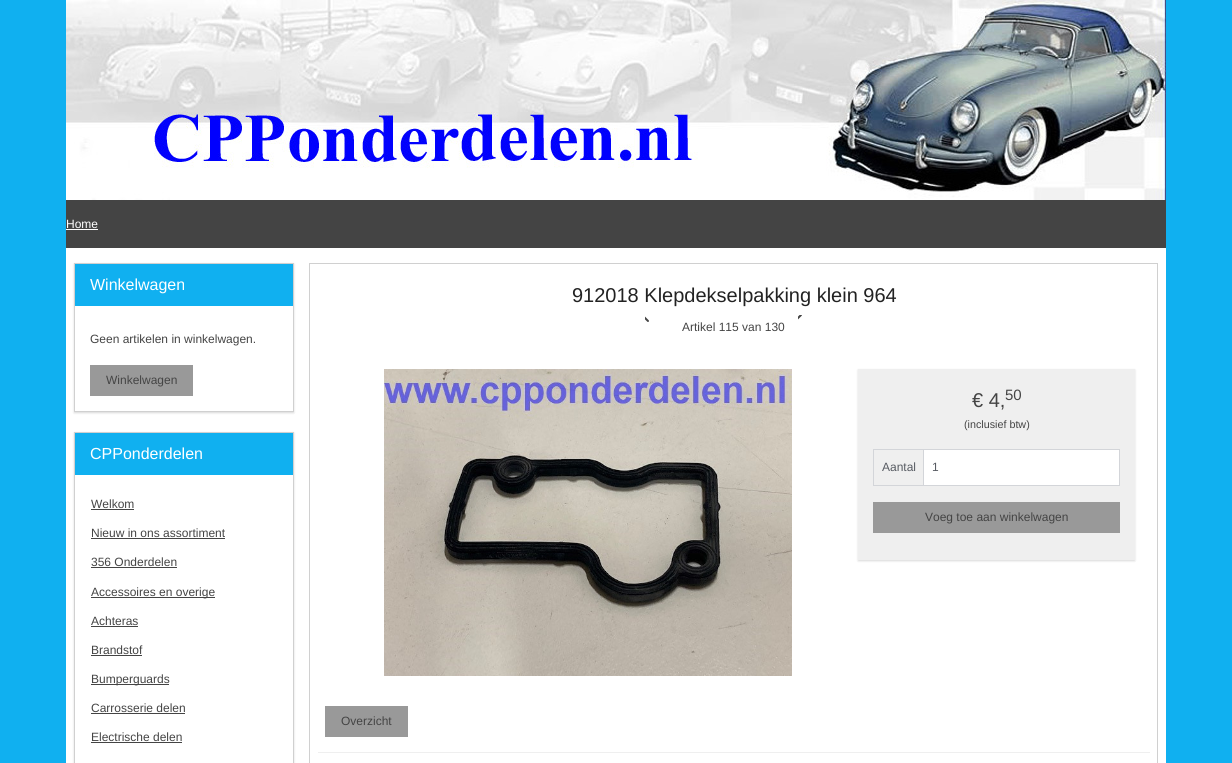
#include <cairo.h>
#include <math.h>
#include <stddef.h>

static cairo_t *c;
static void C(unsigned color){cairo_set_source_rgb(c, (color >> 16) / 255.0, (color >> 8 & 255) / 255.0, (color & 255) / 255.0);}
static void F(const char *family, double size, int italic, int bold){cairo_select_font_face(c, family, italic ? CAIRO_FONT_SLANT_ITALIC : CAIRO_FONT_SLANT_NORMAL,bold ? CAIRO_FONT_WEIGHT_BOLD : CAIRO_FONT_WEIGHT_NORMAL);cairo_set_font_size(c, size);}
static void T(double x, double y, const char *s){cairo_move_to(c, x, y);cairo_show_text(c, s);}
static void R(double x, double y, double w, double h){cairo_rectangle(c, x, y, w, h);cairo_fill(c);}
static void Q(double x, double y, double w, double h, double r){cairo_new_sub_path(c);cairo_arc(c, x + w - r, y + h - r, r, 0, M_PI / 2);cairo_arc(c, x + r, y + h - r, r, M_PI / 2, M_PI);cairo_arc(c, x + r, y + r, r, M_PI, 1.5 * M_PI);cairo_arc(c, x + w - r, y + r, r, 1.5 * M_PI, 2 * M_PI);cairo_close_path(c);}
static void S(double x, double y, double w, double h, double r, double blur, double alpha){cairo_push_group_with_content(c, CAIRO_CONTENT_ALPHA);cairo_set_operator(c, CAIRO_OPERATOR_SOURCE);for (int i = 15; i >= -15 && fmin(w, h) + blur * i / 3 > 0; i -= 2) {double e = blur * i / 6;cairo_set_source_rgba(c, 0, 0, 0, alpha * erfc((i - 1) / 8.5) / 2);Q(x - e, y - e, w + 2 * e, h + 2 * e, fmax(0, fmin(r + e + blur * .6, fmin(w, h) / 2 + e)));cairo_fill(c);}cairo_pattern_t *soft = cairo_pop_group(c);cairo_mask(c, soft);cairo_pattern_destroy(soft);}
static void I(const char *path, double x, double y, double w, double h){cairo_surface_t *image = cairo_image_surface_create_from_png(path);cairo_save(c);cairo_set_source_surface(c, image, x, y);cairo_rectangle(c, x, y, w, h);cairo_fill(c);cairo_restore(c);cairo_surface_destroy(image);}
int main(void) {
cairo_surface_t *surface = cairo_image_surface_create(CAIRO_FORMAT_RGB24, 1232, 763);
c = cairo_create(surface);
cairo_font_options_t *options = cairo_font_options_create();
cairo_font_options_set_hint_metrics(options, CAIRO_HINT_METRICS_OFF);
cairo_font_options_set_hint_style(options, CAIRO_HINT_STYLE_NONE);
cairo_set_font_options(c, options);
cairo_set_miter_limit(c, 4);
C(0x10b0f0);
cairo_paint(c);
I("1.png",66,0,1100,200);
C(0x444444);
R(66,200,1100,48);
F("Liberation Sans",12,0,0);
C(0xffffff);
T(66,228,"Home");
R(66,229,32,1);
R(66,248,1100,515);
cairo_save(c);
cairo_set_fill_rule(c,CAIRO_FILL_RULE_EVEN_ODD);
cairo_new_path(c);
cairo_move_to(c,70,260);
cairo_line_to(c,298,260);
cairo_line_to(c,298,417);
cairo_line_to(c,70,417);
cairo_close_path(c);
cairo_move_to(c,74,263);
cairo_line_to(c,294,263);
cairo_line_to(c,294,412);
cairo_line_to(c,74,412);
cairo_close_path(c);
cairo_clip(c);
C(0x000000);
S(74,264,220,149,0,1,.15);
cairo_restore(c);
cairo_rectangle(c,74.5,263.5,219,148);
C(0xd0d0d0);
cairo_set_line_width(c,1);
cairo_stroke(c);
C(0x10b0f0);
R(75,264,218,42);
F("Liberation Sans",16,0,0);
C(0xffffff);
T(90,290,"Winkelwagen");
F("Liberation Sans",12,0,0);
C(0x444444);
T(90,343,"Geen artikelen in winkelwagen.");
C(0x999999);
R(90,365,103,31);
C(0x444444);
T(106,384,"Winkelwagen");
cairo_save(c);
cairo_set_fill_rule(c,CAIRO_FILL_RULE_EVEN_ODD);
cairo_new_path(c);
cairo_move_to(c,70,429);
cairo_line_to(c,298,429);
cairo_line_to(c,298,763);
cairo_line_to(c,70,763);
cairo_close_path(c);
cairo_move_to(c,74,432);
cairo_line_to(c,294,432);
cairo_line_to(c,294,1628);
cairo_line_to(c,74,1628);
cairo_close_path(c);
cairo_clip(c);
C(0x000000);
S(74,433,220,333,0,1,.15);
cairo_restore(c);
cairo_rectangle(c,74.5,432.5,219,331);
C(0xd0d0d0);
cairo_stroke(c);
C(0x10b0f0);
R(75,433,218,42);
F("Liberation Sans",16,0,0);
C(0xffffff);
T(90,459,"CPPonderdelen");
F("Liberation Sans",12,0,0);
C(0x444444);
T(91,508,"Welkom");
R(91,509,43,1);
T(91,537,"Nieuw in ons assortiment");
R(91,538,134,1);
T(91,566,"356 Onderdelen");
R(91,567,86,1);
R(91,597,124,1);
T(91,596,"Accessoires en overige");
T(91,625,"Achteras");
R(91,626,47,1);
T(91,654,"Brandstof");
R(91,655,51,1);
R(91,684,78,1);
T(91,683,"Bumperguards");
T(91,712,"Carrosserie delen");
R(91,713,94,1);
T(91,741,"Electrische delen");
R(91,742,91,1);
cairo_rectangle(c,309.5,263.5,848,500);
C(0xd0d0d0);
cairo_stroke(c);
F("Liberation Sans",20,0,0);
C(0x222222);
T(572,302,"912018 Klepdekselpakking klein 964");
I("2.png",645,316,4,6);
I("3.png",798,315,4,5);
F("Liberation Sans",12,0,0);
C(0x444444);
T(682,331,"Artikel 115 van 130");
I("4.png",384,369,408,307);
C(0x000000);
S(858,370,277,191,0,1,.15);
C(0xefefef);
R(858,369,277,191);
F("Liberation Sans",20,0,0);
C(0x444444);
T(972,407,"€ 4,");
F("Liberation Sans",15,0,0);
T(1005,400,"50");
F("Liberation Sans",10.75,0,0);
T(964,428,"(inclusief btw)");
C(0xffffff);
R(924,450,195,35);
C(0xd3d5d9);
R(923,449,1,36);
R(873,449,247,1);
R(1119,449,1,37);
R(873,485,247,1);
R(873,449,1,37);
F("Liberation Sans",12,0,0);
C(0x575b62);
T(882,471,"Aantal");
T(932,471,"1");
C(0x999999);
R(873,502,247,31);
C(0x444444);
T(925,521,"Voeg toe aan winkelwagen");
C(0x999999);
R(325,706,83,31);
C(0x444444);
T(341,725,"Overzicht");
C(0xefefef);
R(318,752,832,1);
cairo_surface_write_to_png(surface, "o.png");
cairo_font_options_destroy(options);
cairo_destroy(c);
cairo_surface_destroy(surface);
return 0;
}
